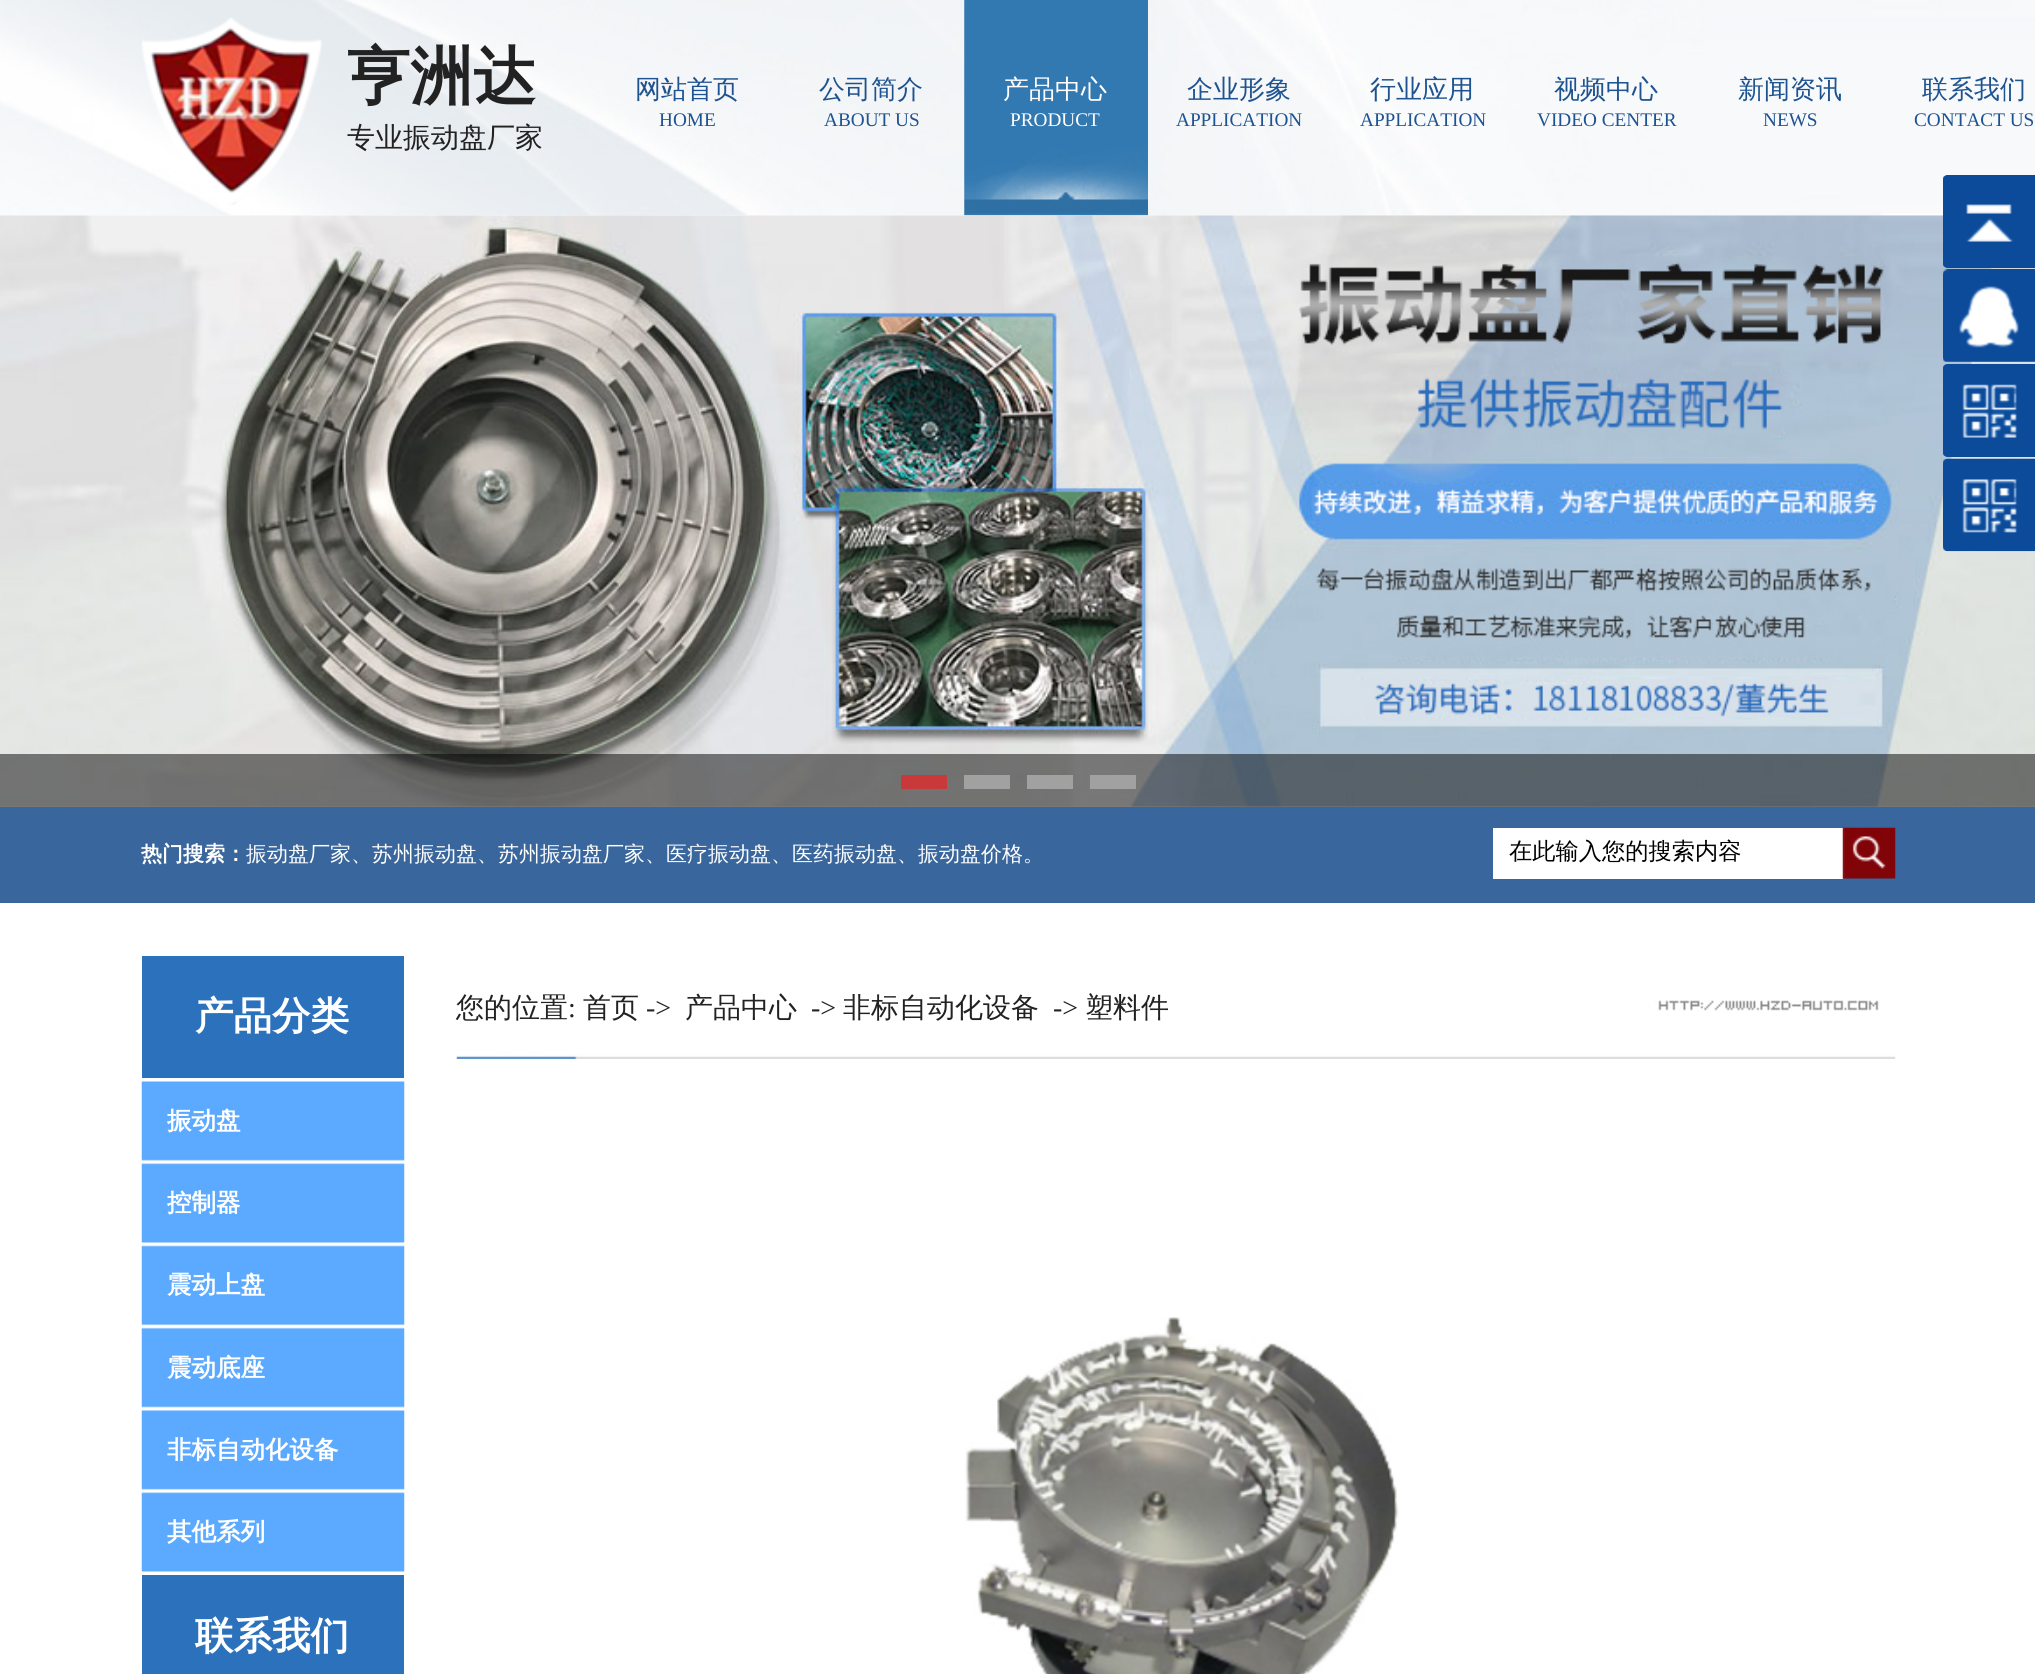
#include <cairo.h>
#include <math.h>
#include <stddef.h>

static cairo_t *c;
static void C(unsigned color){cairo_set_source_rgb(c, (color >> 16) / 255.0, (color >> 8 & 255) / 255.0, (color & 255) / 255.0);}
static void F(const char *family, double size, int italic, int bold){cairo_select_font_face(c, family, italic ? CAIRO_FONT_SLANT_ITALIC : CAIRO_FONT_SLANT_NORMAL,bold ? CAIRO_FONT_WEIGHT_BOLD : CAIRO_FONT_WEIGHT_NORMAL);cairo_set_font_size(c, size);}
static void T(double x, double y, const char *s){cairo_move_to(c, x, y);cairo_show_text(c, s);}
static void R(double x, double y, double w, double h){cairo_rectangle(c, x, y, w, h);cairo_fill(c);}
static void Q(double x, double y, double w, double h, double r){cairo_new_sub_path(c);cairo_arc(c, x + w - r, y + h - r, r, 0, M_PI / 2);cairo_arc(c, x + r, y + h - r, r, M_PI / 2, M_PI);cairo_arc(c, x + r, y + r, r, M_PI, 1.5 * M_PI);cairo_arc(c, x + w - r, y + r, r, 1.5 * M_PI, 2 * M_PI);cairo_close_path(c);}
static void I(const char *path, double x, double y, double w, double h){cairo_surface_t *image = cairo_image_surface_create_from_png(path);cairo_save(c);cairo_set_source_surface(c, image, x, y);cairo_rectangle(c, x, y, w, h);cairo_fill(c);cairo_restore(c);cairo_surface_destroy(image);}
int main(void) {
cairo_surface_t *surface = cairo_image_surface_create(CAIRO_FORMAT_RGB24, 2035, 1674);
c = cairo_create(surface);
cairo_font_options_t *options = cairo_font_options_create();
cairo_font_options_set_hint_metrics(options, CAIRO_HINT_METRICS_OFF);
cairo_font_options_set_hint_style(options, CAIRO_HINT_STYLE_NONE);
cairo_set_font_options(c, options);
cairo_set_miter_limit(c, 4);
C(0xffffff);
cairo_paint(c);
I("1.png",0,0,2035,216);
I("2.png",141,17,181,188);
F("WenQuanYi Zen Hei",63,0,1);
C(0x222222);
T(347,98,"亨洲达");
F("WenQuanYi Zen Hei Medium",28,0,0);
T(347,147,"专业振动盘厂家");
F("WenQuanYi Zen Hei Medium",26,0,0);
C(0x1d5390);
T(635,98,"网站首页");
F("Liberation Serif",19.25,0,0);
T(659,126,"HOME");
F("WenQuanYi Zen Hei Medium",26,0,0);
T(819,98,"公司简介");
F("Liberation Serif",19.25,0,0);
T(824,126,"ABOUT US");
I("3.png",964,0,184,216);
F("WenQuanYi Zen Hei Medium",26,0,0);
C(0xffffff);
T(1003,98,"产品中心");
F("Liberation Serif",19.25,0,0);
T(1010,126,"PRODUCT");
F("WenQuanYi Zen Hei Medium",26,0,0);
C(0x1d5390);
T(1187,98,"企业形象");
F("Liberation Serif",19.25,0,0);
T(1176,126,"APPLICATION");
F("WenQuanYi Zen Hei Medium",26,0,0);
T(1370,98,"行业应用");
F("Liberation Serif",19.25,0,0);
T(1360,126,"APPLICATION");
F("WenQuanYi Zen Hei Medium",26,0,0);
T(1554,98,"视频中心");
F("Liberation Serif",19.25,0,0);
T(1537,126,"VIDEO CENTER");
F("WenQuanYi Zen Hei Medium",26,0,0);
T(1738,98,"新闻资讯");
F("Liberation Serif",19.25,0,0);
T(1763,126,"NEWS");
F("WenQuanYi Zen Hei Medium",26,0,0);
T(1922,98,"联系我们");
F("Liberation Serif",19.25,0,0);
T(1914,126,"CONTACT US");
I("8.png",0,215,2035,592);
C(0x0c4b9a);
Q(1943,175,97,93,5);
cairo_fill(c);
I("4.png",1943,175,70,93);
I("5.png",1943,269,92,93);
Q(1943,364,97,93,5);
cairo_fill(c);
I("6.png",1943,364,74,93);
I("7.png",1943,458,92,94);
cairo_set_source_rgba(c,0,0,0,0.5);
R(0,754,2035,53);
C(0xc93939);
R(901,775,46,14);
C(0xa1a1a1);
R(964,775,46,14);
R(1027,775,46,14);
R(1090,775,46,14);
C(0x39669c);
R(0,807,2035,96);
F("WenQuanYi Zen Hei",21,0,1);
C(0xffffff);
T(141,861,"热门搜索：");
F("WenQuanYi Zen Hei Medium",21,0,0);
T(246,861,"振动盘厂家、苏州振动盘、苏州振动盘厂家、医疗振动盘、医药振动盘、振动盘价格。");
R(1493,828,350,51);
F("WenQuanYi Zen Hei Medium",23.25,0,0);
C(0x000000);
T(1509,859,"在此输入您的搜索内容");
I("9.png",1842,827,54,52);
C(0x2c71bc);
R(142,956,262,122);
F("WenQuanYi Zen Hei",38.5,0,1);
C(0xffffff);
T(195,1029,"产品分类");
I("10.png",141,1081,264,491);
F("WenQuanYi Zen Hei",24.5,0,1);
T(167,1129,"振动盘");
T(167,1211,"控制器");
T(167,1293,"震动上盘");
T(167,1376,"震动底座");
T(167,1458,"非标自动化设备");
T(167,1540,"其他系列");
C(0x2c71bc);
R(142,1575,262,99);
F("WenQuanYi Zen Hei",38.5,0,1);
C(0xffffff);
T(195,1649,"联系我们");
I("11.png",456,1000,1440,59);
F("WenQuanYi Zen Hei Medium",28,0,0);
C(0x222222);
T(456,1017,"您的位置");
F("Liberation Serif",28,0,0);
T(568,1017,":");
F("WenQuanYi Zen Hei Medium",28,0,0);
T(583,1017,"首页");
F("Liberation Serif",28,0,0);
T(646,1017,"->");
F("WenQuanYi Zen Hei Medium",28,0,0);
T(685,1017,"产品中心");
F("Liberation Serif",28,0,0);
T(811,1017,"->");
F("WenQuanYi Zen Hei Medium",28,0,0);
T(843,1017,"非标自动化设备");
F("Liberation Serif",28,0,0);
T(1053,1017,"->");
F("WenQuanYi Zen Hei Medium",28,0,0);
T(1085,1017,"塑料件");
I("12.png",965,1317,434,357);
cairo_surface_write_to_png(surface, "o.png");
cairo_font_options_destroy(options);
cairo_destroy(c);
cairo_surface_destroy(surface);
return 0;
}
